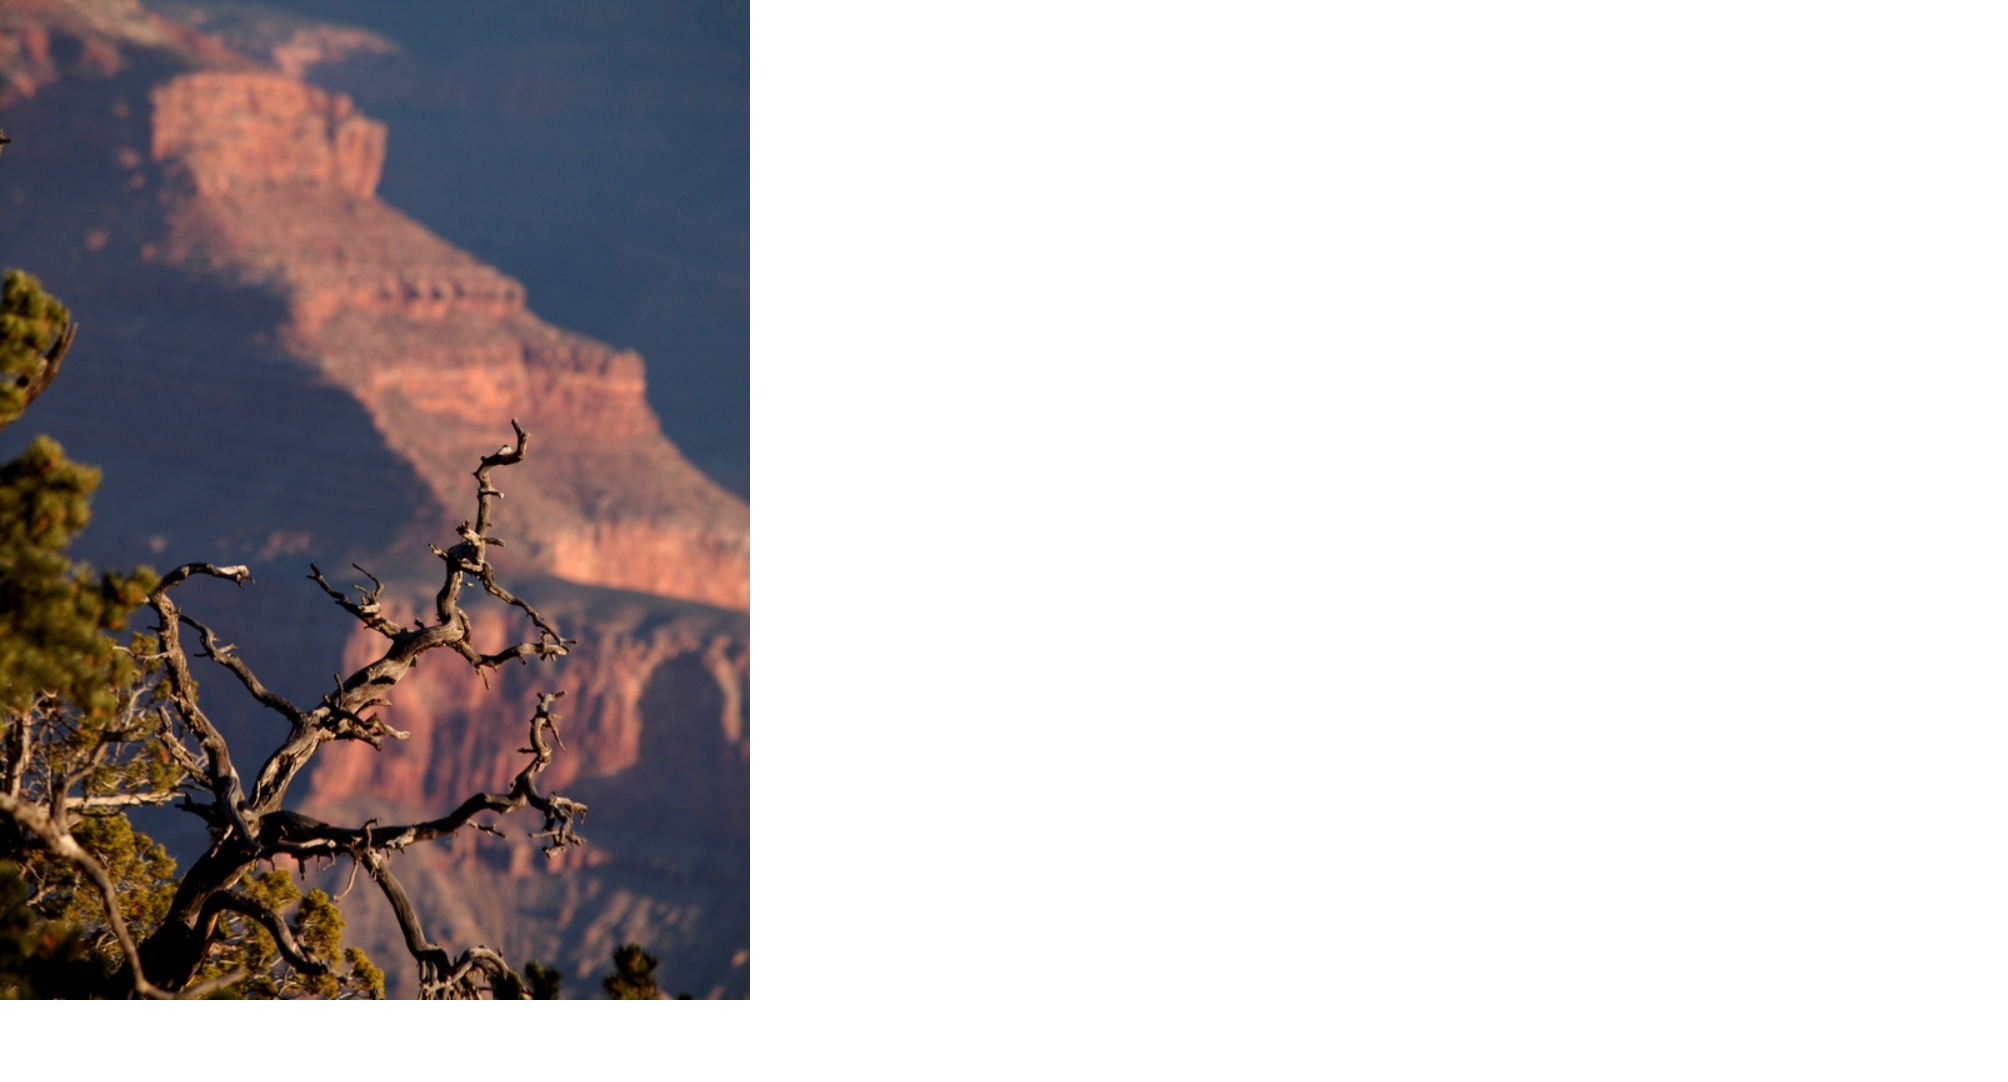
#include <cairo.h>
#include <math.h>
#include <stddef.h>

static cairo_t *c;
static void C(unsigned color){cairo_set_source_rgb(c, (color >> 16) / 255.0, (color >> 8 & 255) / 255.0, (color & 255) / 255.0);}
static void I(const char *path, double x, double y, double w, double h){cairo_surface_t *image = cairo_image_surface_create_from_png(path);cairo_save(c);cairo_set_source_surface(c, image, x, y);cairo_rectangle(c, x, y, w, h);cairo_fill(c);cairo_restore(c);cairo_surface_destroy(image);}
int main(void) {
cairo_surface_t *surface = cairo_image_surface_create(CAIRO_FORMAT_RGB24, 2008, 1082);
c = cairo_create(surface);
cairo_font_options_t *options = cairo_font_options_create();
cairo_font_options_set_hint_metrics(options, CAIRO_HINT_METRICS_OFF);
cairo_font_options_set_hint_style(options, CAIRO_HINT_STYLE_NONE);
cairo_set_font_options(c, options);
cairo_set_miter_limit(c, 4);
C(0xffffff);
cairo_paint(c);
I("1.png",0,0,750,1000);
cairo_surface_write_to_png(surface, "o.png");
cairo_font_options_destroy(options);
cairo_destroy(c);
cairo_surface_destroy(surface);
return 0;
}
